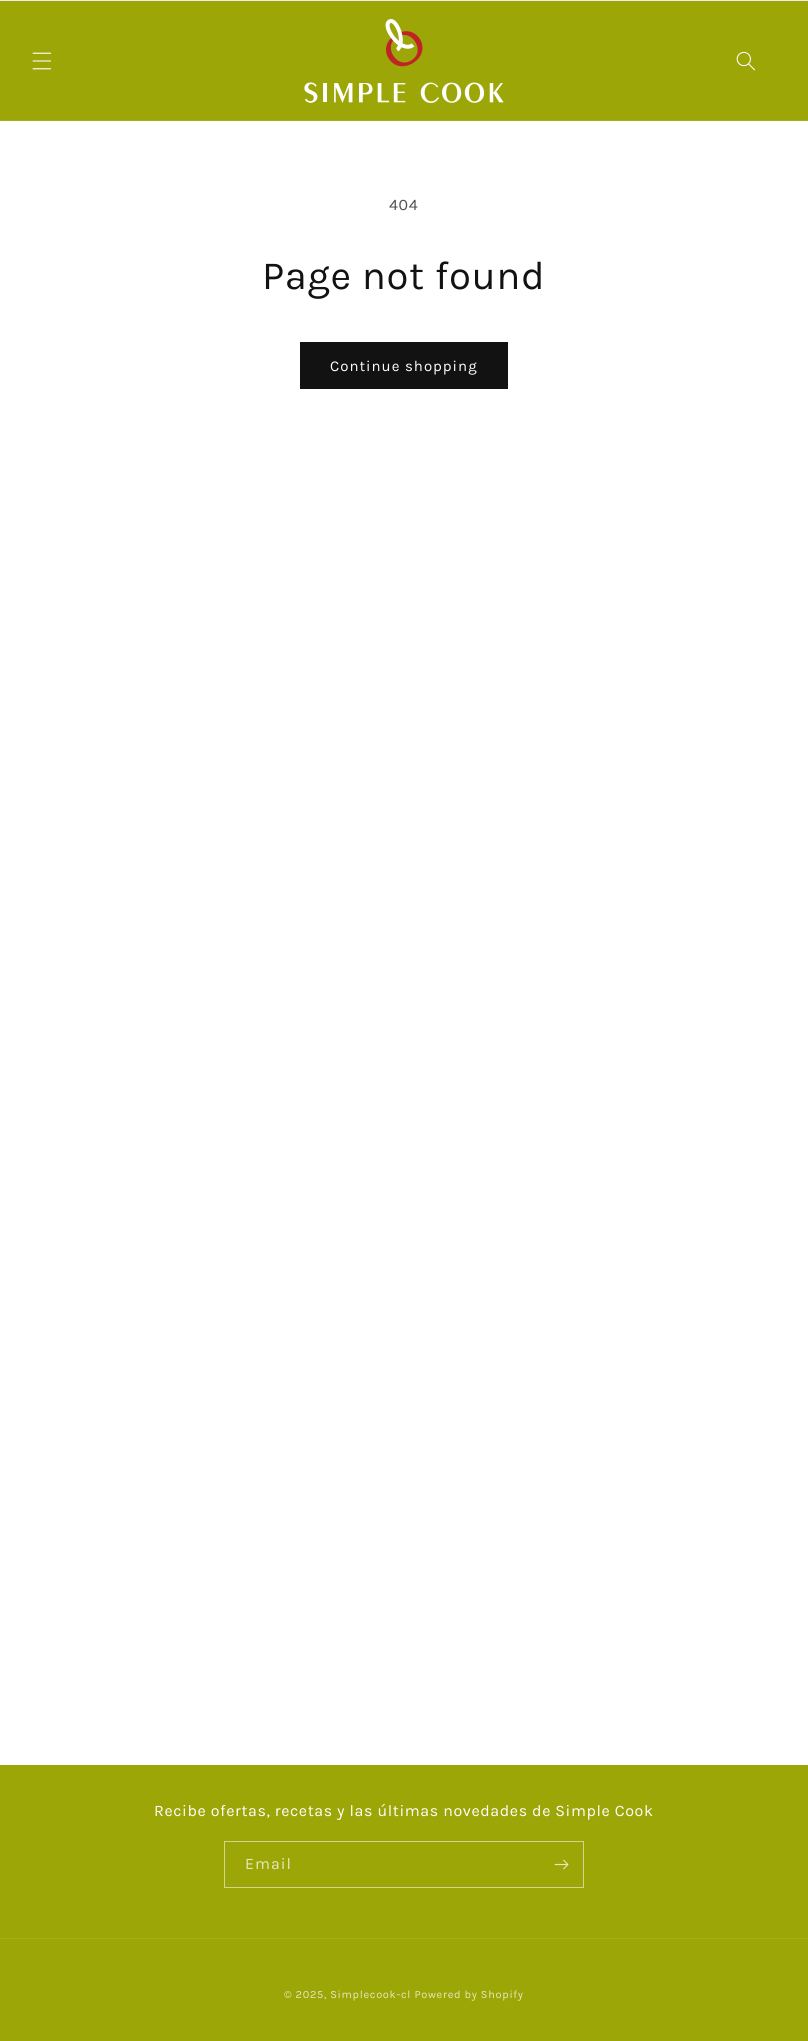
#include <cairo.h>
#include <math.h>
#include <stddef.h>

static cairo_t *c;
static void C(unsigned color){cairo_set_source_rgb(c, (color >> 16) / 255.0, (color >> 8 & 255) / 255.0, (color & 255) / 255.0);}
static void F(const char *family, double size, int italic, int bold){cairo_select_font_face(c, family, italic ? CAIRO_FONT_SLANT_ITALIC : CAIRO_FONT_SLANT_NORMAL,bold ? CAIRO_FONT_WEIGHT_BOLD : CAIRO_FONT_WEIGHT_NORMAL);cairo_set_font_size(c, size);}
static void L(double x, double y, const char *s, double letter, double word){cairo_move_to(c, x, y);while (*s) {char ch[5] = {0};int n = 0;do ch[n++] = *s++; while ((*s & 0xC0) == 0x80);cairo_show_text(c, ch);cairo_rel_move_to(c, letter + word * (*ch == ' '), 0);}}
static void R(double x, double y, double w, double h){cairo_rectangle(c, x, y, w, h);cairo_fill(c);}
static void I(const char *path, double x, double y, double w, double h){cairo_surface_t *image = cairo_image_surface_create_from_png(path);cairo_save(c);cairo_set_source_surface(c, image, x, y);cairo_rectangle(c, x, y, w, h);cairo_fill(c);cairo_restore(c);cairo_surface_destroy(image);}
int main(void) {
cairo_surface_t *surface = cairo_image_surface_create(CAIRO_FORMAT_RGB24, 808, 2041);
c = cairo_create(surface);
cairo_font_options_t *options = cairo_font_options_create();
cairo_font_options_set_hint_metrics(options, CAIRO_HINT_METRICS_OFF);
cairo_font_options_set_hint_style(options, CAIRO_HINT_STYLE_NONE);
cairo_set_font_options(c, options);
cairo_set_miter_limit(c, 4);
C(0xffffff);
cairo_paint(c);
C(0xececec);
R(0,0,808,1);
C(0x9ca606);
R(0,1,808,119);
C(0xa4ad1a);
R(0,120,808,1);
I("1.png",32,52,20,18);
I("2.png",304,19,200,84);
I("3.png",736,51,19,20);
F("Karla",16,0,0);
C(0x4d4d4d);
L(389,210,"404",.6,0);
F("Karla",40,0,0);
C(0x121212);
L(262,289,"Page not found",.6,0);
R(300,342,208,47);
F("Karla",15,0,0);
C(0xffffff);
L(330,371,"Continue shopping",1,0);
C(0x9ca606);
R(0,1765,808,276);
F("Karla",16,0,0);
C(0xffffff);
L(154,1816,"Recibe ofertas, recetas y las últimas novedades de Simple Cook",.6,0);
cairo_rectangle(c,224.5,1841.5,359,46);
C(0xd2d78f);
cairo_set_line_width(c,1);
cairo_stroke(c);
C(0xe6e9c1);
L(245,1869,"Email",1,0);
I("4.png",554,1859,15,11);
C(0xa4ad1a);
R(0,1938,808,1);
F("Karla",11,0,0);
C(0xe6e9c1);
L(284,1998,"© 2025, Simplecook-cl Powered by Shopify",.7,0);
cairo_surface_write_to_png(surface, "o.png");
cairo_font_options_destroy(options);
cairo_destroy(c);
cairo_surface_destroy(surface);
return 0;
}
